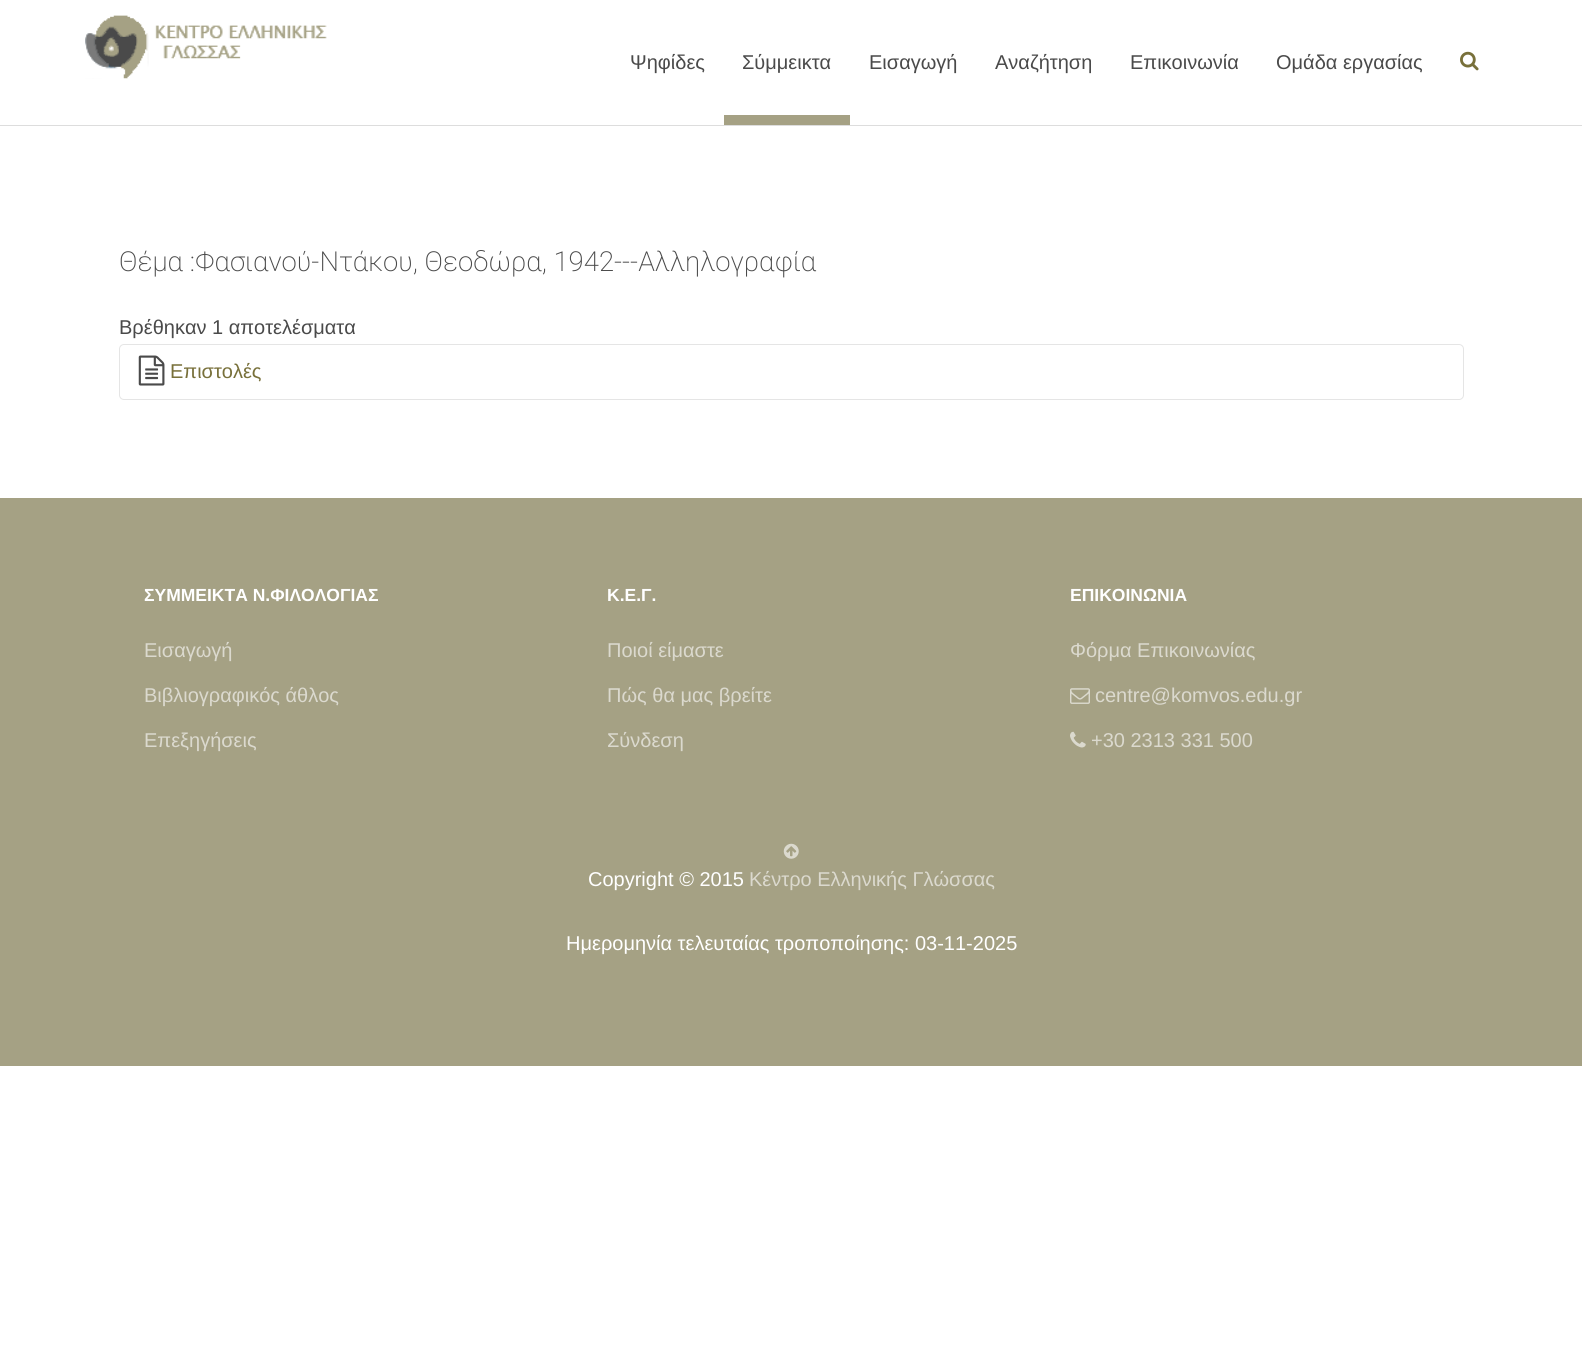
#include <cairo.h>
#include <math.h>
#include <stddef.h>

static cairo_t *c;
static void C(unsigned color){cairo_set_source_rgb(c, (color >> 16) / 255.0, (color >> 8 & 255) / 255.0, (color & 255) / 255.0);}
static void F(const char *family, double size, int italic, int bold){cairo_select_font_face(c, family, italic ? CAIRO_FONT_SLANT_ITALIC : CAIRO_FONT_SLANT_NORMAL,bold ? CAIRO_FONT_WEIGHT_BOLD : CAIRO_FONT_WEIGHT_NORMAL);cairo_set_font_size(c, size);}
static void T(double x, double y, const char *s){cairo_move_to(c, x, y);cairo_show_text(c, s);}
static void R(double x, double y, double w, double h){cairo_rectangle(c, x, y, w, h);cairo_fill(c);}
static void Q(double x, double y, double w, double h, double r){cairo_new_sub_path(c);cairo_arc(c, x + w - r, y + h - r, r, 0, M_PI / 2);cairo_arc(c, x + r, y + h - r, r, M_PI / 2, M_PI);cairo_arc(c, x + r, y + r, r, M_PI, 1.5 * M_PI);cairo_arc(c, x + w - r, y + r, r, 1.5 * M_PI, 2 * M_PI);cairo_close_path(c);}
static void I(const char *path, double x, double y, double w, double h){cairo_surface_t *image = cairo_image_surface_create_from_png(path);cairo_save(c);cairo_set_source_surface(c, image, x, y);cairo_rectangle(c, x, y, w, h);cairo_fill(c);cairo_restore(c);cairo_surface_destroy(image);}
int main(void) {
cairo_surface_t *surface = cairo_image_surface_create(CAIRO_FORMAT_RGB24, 1582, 1357);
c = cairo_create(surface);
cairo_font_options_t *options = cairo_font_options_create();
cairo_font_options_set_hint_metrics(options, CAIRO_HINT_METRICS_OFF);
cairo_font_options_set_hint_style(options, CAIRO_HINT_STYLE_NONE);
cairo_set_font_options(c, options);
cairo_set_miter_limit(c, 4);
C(0xffffff);
cairo_paint(c);
I("1.png",85,15,242,64);
F("Liberation Sans",20,0,0);
C(0x4a4a4a);
T(630,69,"Ψηφίδες");
T(742,69,"Σύμμεικτα");
C(0xa5a184);
R(724,115,126,10);
C(0x4a4a4a);
T(869,69,"Εισαγωγή");
T(995,69,"Αναζήτηση");
T(1130,69,"Επικοινωνία");
T(1276,69,"Ομάδα εργασίας");
I("2.png",1460,51,19,20);
C(0xdddddd);
R(0,125,1582,1);
F("Roboto ExtraLight",27.5,0,0);
C(0x4a4a4a);
T(119,271,"Θέμα :Φασιανού-Ντάκου, Θεοδώρα, 1942---Αλληλογραφία");
F("Liberation Sans",20,0,0);
T(119,334,"Βρέθηκαν 1 αποτελέσματα");
Q(119.5,344.5,1344,55,4.5);
C(0xe5e5e5);
cairo_set_line_width(c,1);
cairo_stroke(c);
I("3.png",138,355,27,31);
C(0x78703a);
T(170,378,"Επιστολές");
C(0xa5a184);
R(0,498,1582,568);
F("Liberation Sans",17.5,0,1);
C(0xffffff);
T(144,601,"ΣΥΜΜΕΙΚΤΑ Ν.ΦΙΛΟΛΟΓΙΑΣ");
F("Liberation Sans",20,0,0);
C(0xdbd9ce);
T(144,657,"Εισαγωγή");
T(144,702,"Βιβλιογραφικός άθλος");
T(144,747,"Επεξηγήσεις");
F("Liberation Sans",17.5,0,1);
C(0xffffff);
T(607,601,"Κ.Ε.Γ.");
F("Liberation Sans",20,0,0);
C(0xdbd9ce);
T(607,657,"Ποιοί είμαστε");
T(607,702,"Πώς θα μας βρείτε");
T(607,747,"Σύνδεση");
F("Liberation Sans",17.5,0,1);
C(0xffffff);
T(1070,601,"ΕΠΙΚΟΙΝΩΝΙΑ");
F("Liberation Sans",20,0,0);
C(0xdbd9ce);
T(1070,657,"Φόρμα Επικοινωνίας");
I("4.png",1070,688,20,16);
T(1095,702,"centre@komvos.edu.gr");
I("5.png",1070,731,16,17);
T(1091,747,"+30 2313 331 500");
I("6.png",783,843,16,16);
C(0xffffff);
T(588,886,"Copyright © 2015");
C(0xdbd9ce);
T(749,886,"Κέντρο Ελληνικής Γλώσσας");
C(0xffffff);
T(566,950,"Ημερομηνία τελευταίας τροποποίησης: 03-11-2025");
cairo_surface_write_to_png(surface, "o.png");
cairo_font_options_destroy(options);
cairo_destroy(c);
cairo_surface_destroy(surface);
return 0;
}
